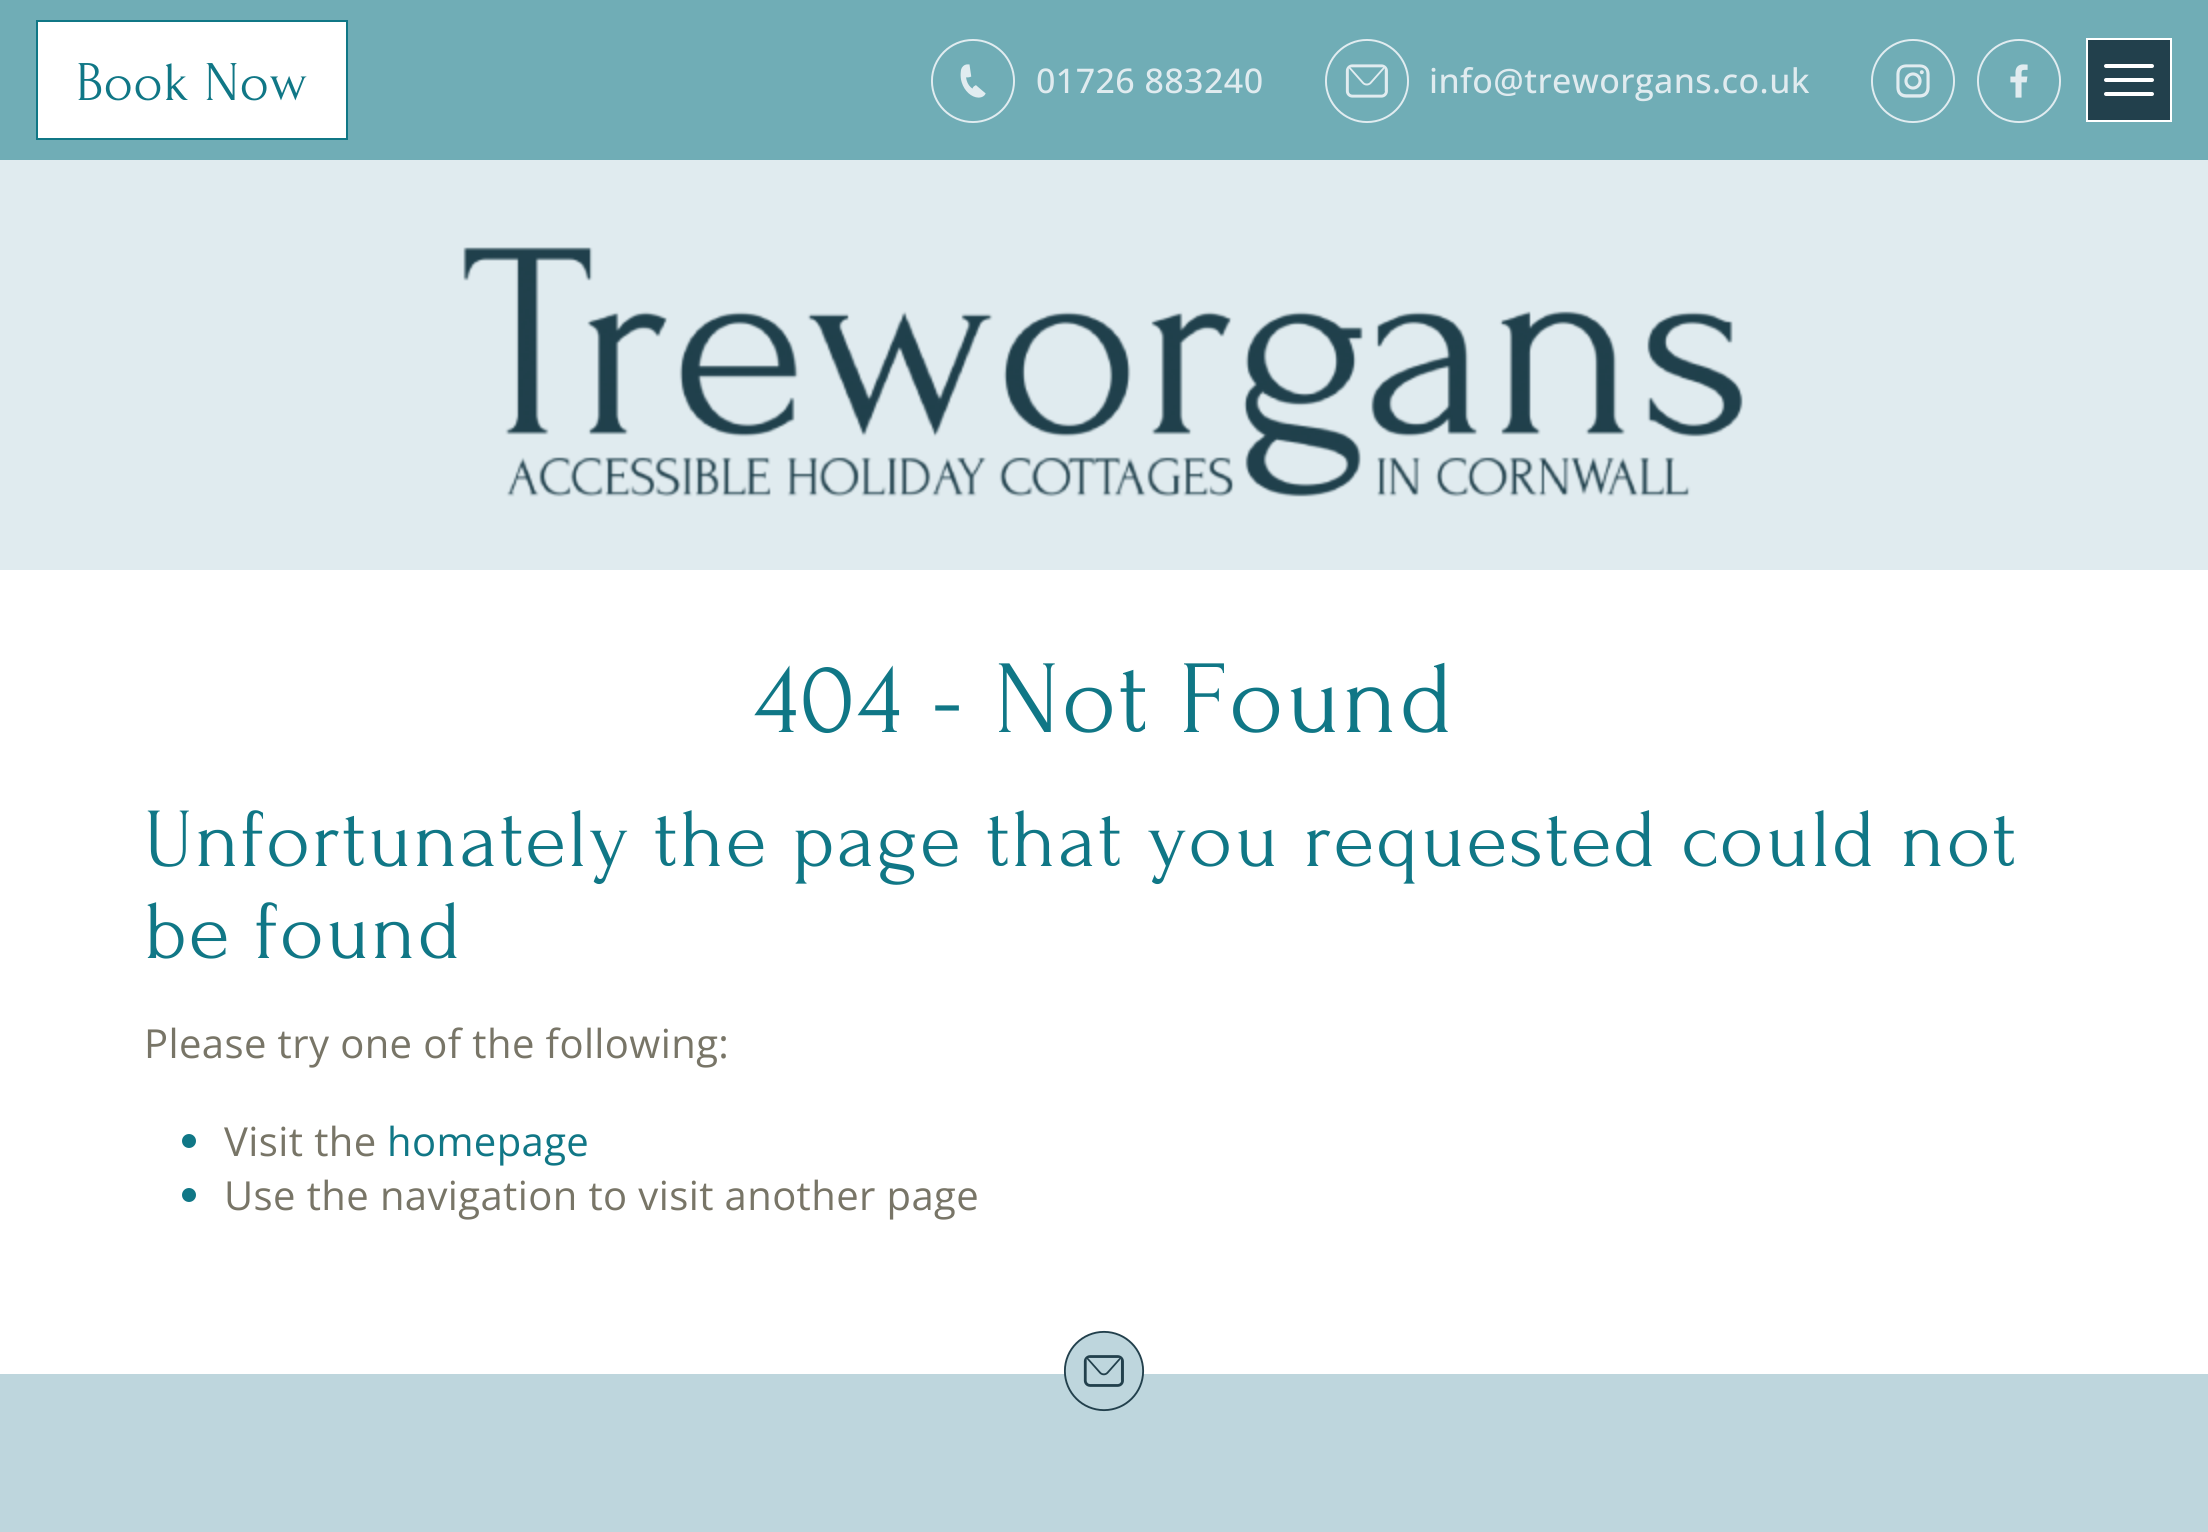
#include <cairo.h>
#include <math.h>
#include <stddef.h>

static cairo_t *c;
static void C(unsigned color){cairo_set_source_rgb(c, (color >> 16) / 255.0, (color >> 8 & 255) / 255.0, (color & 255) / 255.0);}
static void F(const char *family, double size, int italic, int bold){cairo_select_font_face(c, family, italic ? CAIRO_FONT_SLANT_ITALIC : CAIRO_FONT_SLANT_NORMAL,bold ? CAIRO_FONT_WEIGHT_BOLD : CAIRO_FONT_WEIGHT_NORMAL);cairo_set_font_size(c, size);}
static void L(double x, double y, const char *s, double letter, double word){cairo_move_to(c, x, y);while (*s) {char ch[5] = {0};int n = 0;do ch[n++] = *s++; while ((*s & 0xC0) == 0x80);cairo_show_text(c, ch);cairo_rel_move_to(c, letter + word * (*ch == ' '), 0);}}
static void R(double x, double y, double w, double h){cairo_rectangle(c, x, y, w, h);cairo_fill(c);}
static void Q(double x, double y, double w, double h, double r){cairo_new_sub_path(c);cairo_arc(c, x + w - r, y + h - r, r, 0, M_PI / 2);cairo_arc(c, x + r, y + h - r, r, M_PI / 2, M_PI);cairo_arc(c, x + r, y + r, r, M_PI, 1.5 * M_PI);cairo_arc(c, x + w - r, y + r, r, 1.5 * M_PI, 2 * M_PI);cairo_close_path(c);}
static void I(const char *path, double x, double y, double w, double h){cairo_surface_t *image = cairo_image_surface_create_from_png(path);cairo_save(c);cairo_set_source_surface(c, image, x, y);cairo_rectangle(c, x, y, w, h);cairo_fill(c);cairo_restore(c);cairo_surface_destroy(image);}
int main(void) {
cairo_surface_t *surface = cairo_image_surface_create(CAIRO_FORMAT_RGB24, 2208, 1532);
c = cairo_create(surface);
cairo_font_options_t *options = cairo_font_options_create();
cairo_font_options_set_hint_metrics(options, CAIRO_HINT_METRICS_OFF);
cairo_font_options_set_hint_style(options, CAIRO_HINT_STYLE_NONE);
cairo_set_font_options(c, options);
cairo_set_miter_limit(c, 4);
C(0xffffff);
cairo_paint(c);
C(0xe0ebef);
R(0,160,2208,410);
C(0x70adb6);
R(0,0,2208,160);
C(0x22404c);
cairo_rectangle(c,2087,39,84,82);
cairo_fill_preserve(c);
C(0xffffff);
cairo_stroke(c);
Q(2104,64,50,4,2);
cairo_fill(c);
Q(2104,78,50,4,2);
cairo_fill(c);
Q(2104,92,50,4,2);
cairo_fill(c);
I("1.png",463,247,1280,250);
cairo_rectangle(c,37,21,310,118);
cairo_fill_preserve(c);
C(0x107786);
cairo_stroke(c);
F("Forum",56,0,0);
L(76,100,"Book Now",.4,0);
I("2.png",931,39,84,84);
F("Open Sans Medium",34,0,0);
C(0xe0ebef);
L(1036,93,"01726 883240",.4,0);
I("3.png",1325,39,84,84);
L(1429,93,"info@treworgans.co.uk",.4,0);
I("4.png",1871,39,84,84);
I("5.png",1977,39,84,84);
F("Forum",104,0,0);
C(0x107786);
L(754,732,"404 - Not Found",2.1,0);
F("Forum",84,0,0);
L(144,866,"Unfortunately the page that you requested could not",1.68,0);
L(144,958,"be found",1.68,0);
F("Open Sans",40,0,0);
C(0x787567);
L(144,1058,"Please try one of the following:",.4,0);
C(0x107786);
cairo_new_path(c);
cairo_arc(c,189,1141,7,0,2 * M_PI);
cairo_fill(c);
C(0x787567);
L(224,1156,"Visit the",.4,0);
C(0x107786);
L(387,1156,"homepage",.4,0);
cairo_new_path(c);
cairo_arc(c,189,1195,7,0,2 * M_PI);
cairo_fill(c);
C(0x787567);
L(224,1210,"Use the navigation to visit another page",.4,0);
C(0xbed6dd);
R(0,1374,2208,158);
I("6.png",1064,1330,81,82);
cairo_surface_write_to_png(surface, "o.png");
cairo_font_options_destroy(options);
cairo_destroy(c);
cairo_surface_destroy(surface);
return 0;
}
